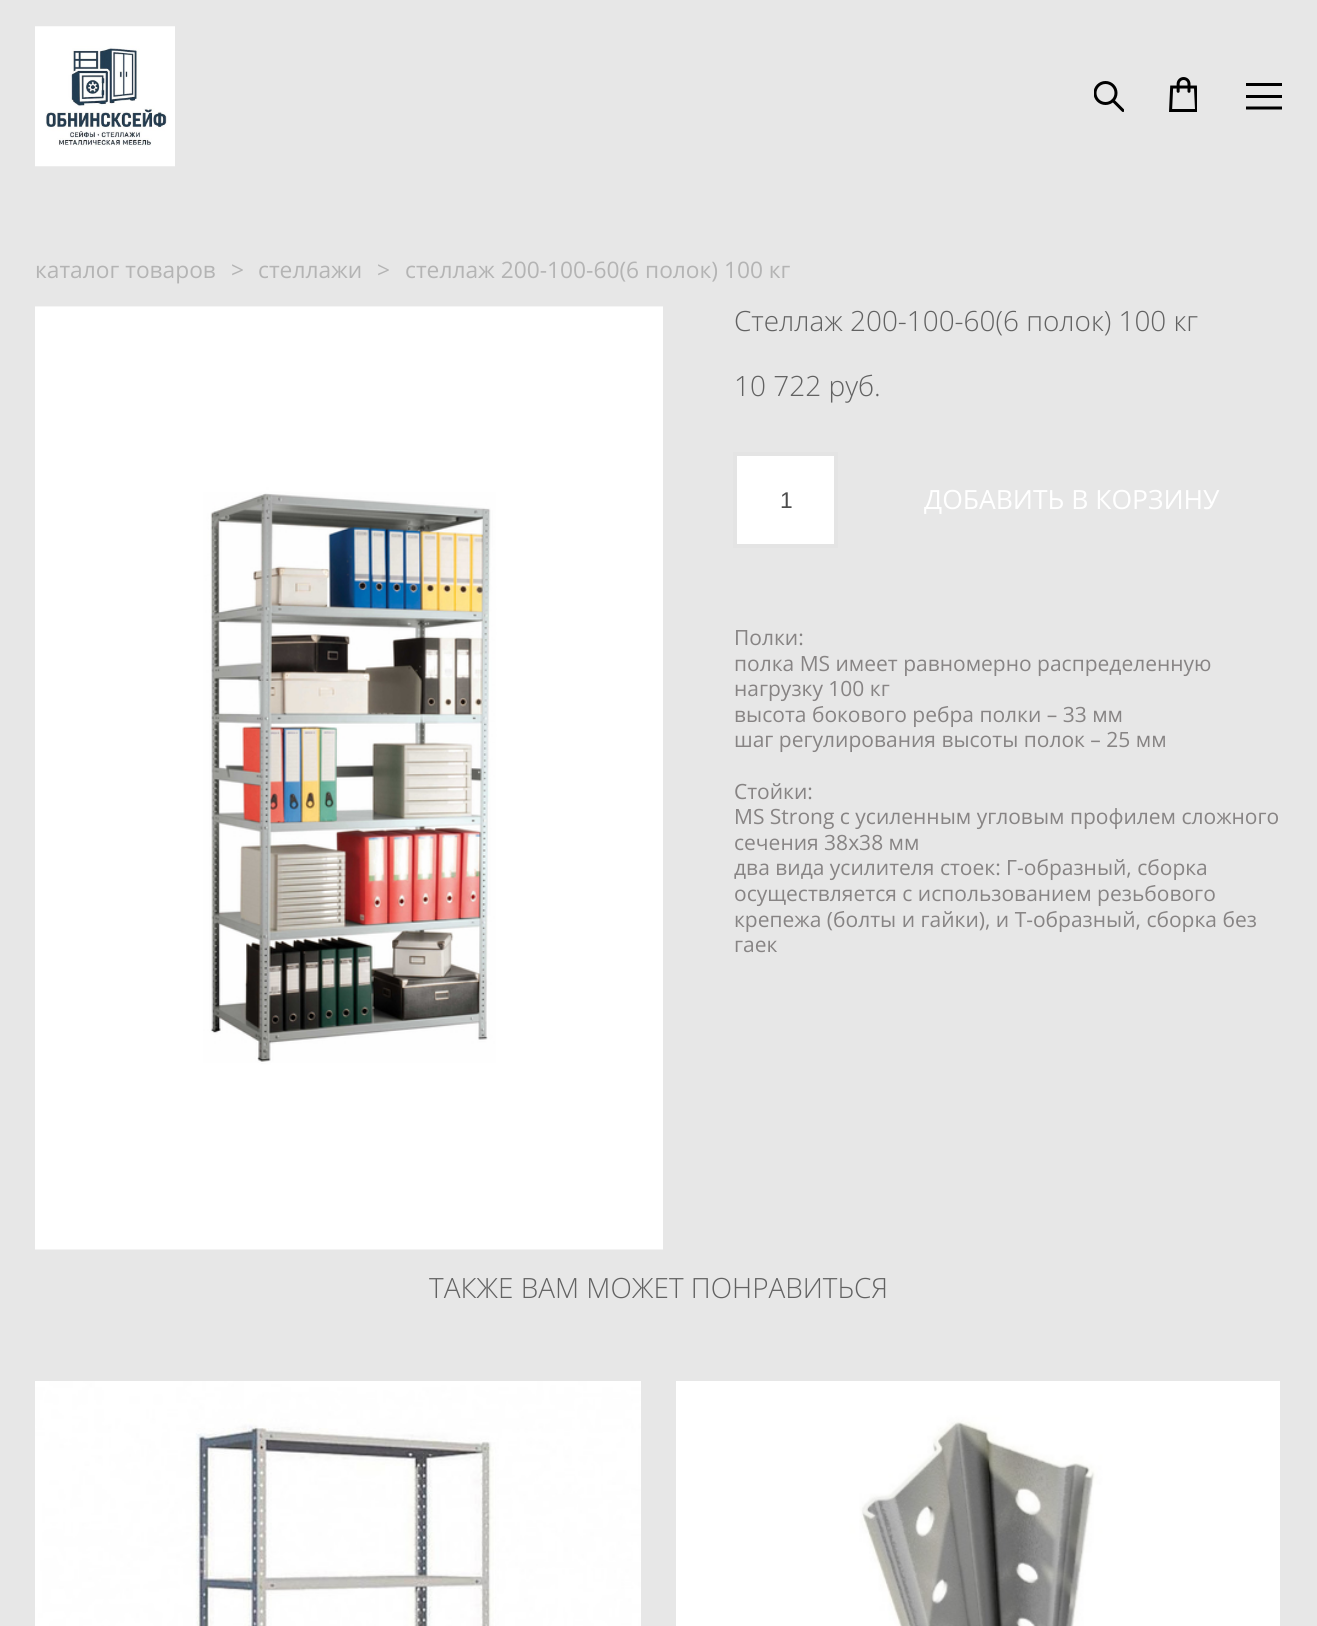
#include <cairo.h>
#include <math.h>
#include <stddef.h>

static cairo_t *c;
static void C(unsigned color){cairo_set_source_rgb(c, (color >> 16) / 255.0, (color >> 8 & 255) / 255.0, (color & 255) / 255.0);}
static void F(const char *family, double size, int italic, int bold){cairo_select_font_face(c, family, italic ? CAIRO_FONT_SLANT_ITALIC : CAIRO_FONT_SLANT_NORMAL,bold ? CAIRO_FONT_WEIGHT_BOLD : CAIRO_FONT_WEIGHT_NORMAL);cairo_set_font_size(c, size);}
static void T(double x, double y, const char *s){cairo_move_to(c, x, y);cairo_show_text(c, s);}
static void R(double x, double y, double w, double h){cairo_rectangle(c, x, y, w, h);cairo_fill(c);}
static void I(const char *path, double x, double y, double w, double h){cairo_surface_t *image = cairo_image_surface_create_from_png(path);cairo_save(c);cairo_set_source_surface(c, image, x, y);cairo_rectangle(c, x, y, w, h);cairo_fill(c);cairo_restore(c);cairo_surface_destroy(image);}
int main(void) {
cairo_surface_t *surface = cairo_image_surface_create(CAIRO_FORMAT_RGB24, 1317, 1626);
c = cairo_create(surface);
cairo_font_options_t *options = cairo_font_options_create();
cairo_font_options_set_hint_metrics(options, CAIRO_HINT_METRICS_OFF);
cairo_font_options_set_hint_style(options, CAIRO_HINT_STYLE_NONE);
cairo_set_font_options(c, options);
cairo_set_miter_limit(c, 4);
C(0xe7e7e7);
cairo_paint(c);
I("1.png",35,26,140,141);
cairo_save(c);
cairo_rectangle(c,1094,77,30,35);
cairo_clip(c);
cairo_arc(c,1105.5,93,10.5,0,2 * M_PI);
C(0x000000);
cairo_set_line_width(c,3);
cairo_stroke(c);
cairo_new_path(c);
cairo_move_to(c,1113,100.5);
cairo_line_to(c,1123,110.5);
cairo_set_line_cap(c,CAIRO_LINE_CAP_ROUND);
cairo_set_line_join(c,CAIRO_LINE_JOIN_ROUND);
cairo_stroke(c);
cairo_restore(c);
I("2.png",1169,77,28,35);
C(0x000000);
R(1246,83,36,3);
R(1246,95,36,3);
cairo_new_path(c);
cairo_move_to(c,1246,108);
cairo_line_to(c,1282,108);
cairo_set_line_width(c,3);
cairo_stroke(c);
F("Open Sans",22.75,0,0);
C(0xb4b4b4);
T(35,278,"каталог товаров");
T(231,278,">");
T(258,278,"стеллажи");
T(377,278,">");
T(405,278,"стеллаж 200-100-60(6 полок) 100 кг");
I("3.png",35,306,628,944);
F("Open Sans Light",27.9,0,0);
C(0x626262);
T(734,331,"Стеллаж 200-100-60(6 полок) 100 кг");
F("Open Sans Light",28,0,0);
T(734,396,"10 722 pуб.");
C(0xffffff);
cairo_rectangle(c,735,454,101,92);
cairo_fill_preserve(c);
C(0xe4e4e4);
cairo_set_line_width(c,4);
cairo_stroke(c);
F("Liberation Sans",22.75,0,0);
C(0x4c4c4c);
T(780,508,"1");
F("Open Sans",26.5,0,0);
C(0xffffff);
T(924,509,"ДОБАВИТЬ В КОРЗИНУ");
F("Open Sans",21,0,0);
C(0x878484);
T(734,645,"Полки:");
T(734,671,"полка MS имеет равномерно распределенную");
T(734,696,"нагрузку 100 кг");
T(734,722,"высота бокового ребра полки – 33 мм");
T(734,747,"шаг регулирования высоты полок – 25 мм");
T(734,799,"Стойки:");
T(734,824,"MS Strong с усиленным угловым профилем сложного");
T(734,850,"сечения 38х38 мм");
T(734,875,"два вида усилителя стоек: Г-образный, сборка");
T(734,901,"осуществляется с использованием резьбового");
T(734,927,"крепежа (болты и гайки), и Т-образный, сборка без");
T(734,952,"гаек");
F("Open Sans Light",27.9,0,0);
C(0x626262);
T(429,1298,"ТАКЖЕ ВАМ МОЖЕТ ПОНРАВИТЬСЯ");
I("4.png",35,1381,606,245);
I("5.png",676,1381,604,245);
cairo_surface_write_to_png(surface, "o.png");
cairo_font_options_destroy(options);
cairo_destroy(c);
cairo_surface_destroy(surface);
return 0;
}
